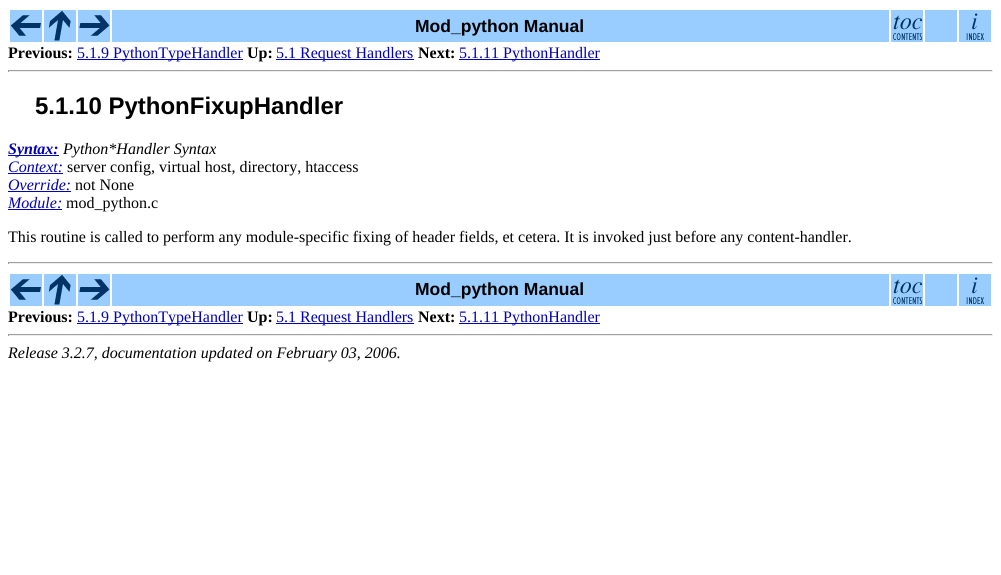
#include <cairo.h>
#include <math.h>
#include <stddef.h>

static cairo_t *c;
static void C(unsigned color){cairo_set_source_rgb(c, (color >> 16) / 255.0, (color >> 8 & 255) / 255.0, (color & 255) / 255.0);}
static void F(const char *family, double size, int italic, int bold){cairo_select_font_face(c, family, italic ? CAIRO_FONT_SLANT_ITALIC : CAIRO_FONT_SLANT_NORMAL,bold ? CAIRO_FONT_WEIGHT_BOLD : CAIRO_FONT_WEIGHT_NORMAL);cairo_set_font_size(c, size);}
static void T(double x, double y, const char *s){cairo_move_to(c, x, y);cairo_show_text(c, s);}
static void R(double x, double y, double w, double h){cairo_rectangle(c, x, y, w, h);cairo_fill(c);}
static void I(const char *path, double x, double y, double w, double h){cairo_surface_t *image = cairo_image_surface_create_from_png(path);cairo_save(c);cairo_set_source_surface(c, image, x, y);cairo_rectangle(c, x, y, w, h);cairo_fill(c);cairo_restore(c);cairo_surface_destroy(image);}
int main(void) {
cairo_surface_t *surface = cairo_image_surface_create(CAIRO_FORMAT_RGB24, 1001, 575);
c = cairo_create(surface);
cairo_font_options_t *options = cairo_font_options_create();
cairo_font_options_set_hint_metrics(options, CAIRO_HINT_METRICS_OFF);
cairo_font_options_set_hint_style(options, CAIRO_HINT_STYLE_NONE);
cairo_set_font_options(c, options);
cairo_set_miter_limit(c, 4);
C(0xffffff);
cairo_paint(c);
C(0x99ccff);
R(10,10,32,32);
I("1.png",10,15,31,21);
R(44,10,32,32);
I("2.png",48,10,23,31);
R(78,10,32,32);
I("3.png",79,15,31,21);
R(112,10,777,32);
F("Liberation Sans",17.5,0,1);
C(0x000000);
T(415,32,"Mod_python Manual");
C(0x99ccff);
R(891,10,32,32);
I("4.png",893,15,29,25);
R(925,10,32,32);
R(959,10,32,32);
I("5.png",966,13,18,27);
F("Liberation Serif",16,0,1);
C(0x000000);
T(8,58,"Previous:");
C(0x0000bb);
R(77,59,166,1);
F("Liberation Serif",16,0,0);
T(77,58,"5.1.9 PythonTypeHandler");
F("Liberation Serif",16,0,1);
C(0x000000);
T(247,58,"Up:");
C(0x0000bb);
R(276,59,138,1);
F("Liberation Serif",16,0,0);
T(276,58,"5.1 Request Handlers");
F("Liberation Serif",16,0,1);
C(0x000000);
T(418,58,"Next:");
C(0x0000bb);
R(459,59,141,1);
F("Liberation Serif",16,0,0);
T(459,58,"5.1.11 PythonHandler");
C(0x9f9f9f);
R(8,70,985,1);
C(0xeeeeee);
R(992,70,1,2);
R(8,71,985,1);
C(0x9f9f9f);
R(8,70,1,2);
F("Liberation Sans",24,0,1);
C(0x000000);
T(35,114,"5.1.10 PythonFixupHandler");
C(0x0000bb);
R(8,155,51,1);
F("Liberation Serif",16,1,1);
T(8,154,"Syntax:");
F("Liberation Serif",16,1,0);
C(0x000000);
T(63,154,"Python*Handler Syntax");
C(0x0000bb);
T(8,172,"Context:");
R(8,173,55,1);
F("Liberation Serif",16,0,0);
C(0x000000);
T(67,172,"server config, virtual host, directory, htaccess");
F("Liberation Serif",16,1,0);
C(0x0000bb);
T(8,190,"Override:");
R(8,191,63,1);
F("Liberation Serif",16,0,0);
C(0x000000);
T(75,190,"not None");
F("Liberation Serif",16,1,0);
C(0x0000bb);
T(8,208,"Module:");
R(8,209,54,1);
F("Liberation Serif",16,0,0);
C(0x000000);
T(66,208,"mod_python.c");
T(8,242,"This routine is called to perform any module-specific fixing of header fields, et cetera. It is invoked just before any content-handler.");
C(0x9f9f9f);
R(8,262,985,1);
C(0xeeeeee);
R(992,262,1,2);
R(8,263,985,1);
C(0x9f9f9f);
R(8,262,1,2);
C(0x99ccff);
R(10,274,32,32);
I("1.png",10,279,31,21);
R(44,274,32,32);
I("2.png",48,274,23,31);
R(78,274,32,32);
I("3.png",79,279,31,21);
R(112,274,777,32);
F("Liberation Sans",17.5,0,1);
C(0x000000);
T(415,295,"Mod_python Manual");
C(0x99ccff);
R(891,274,32,32);
I("4.png",893,279,29,25);
R(925,274,32,32);
R(959,274,32,32);
I("5.png",966,277,18,27);
F("Liberation Serif",16,0,1);
C(0x000000);
T(8,322,"Previous:");
C(0x0000bb);
R(77,323,166,1);
F("Liberation Serif",16,0,0);
T(77,322,"5.1.9 PythonTypeHandler");
F("Liberation Serif",16,0,1);
C(0x000000);
T(247,322,"Up:");
C(0x0000bb);
R(276,323,138,1);
F("Liberation Serif",16,0,0);
T(276,322,"5.1 Request Handlers");
F("Liberation Serif",16,0,1);
C(0x000000);
T(418,322,"Next:");
C(0x0000bb);
R(459,323,141,1);
F("Liberation Serif",16,0,0);
T(459,322,"5.1.11 PythonHandler");
C(0x9f9f9f);
R(8,334,985,1);
C(0xeeeeee);
R(992,334,1,2);
R(8,335,985,1);
C(0x9f9f9f);
R(8,334,1,2);
F("Liberation Serif",16,1,0);
C(0x000000);
T(8,358,"Release 3.2.7, documentation updated on February 03, 2006.");
cairo_surface_write_to_png(surface, "o.png");
cairo_font_options_destroy(options);
cairo_destroy(c);
cairo_surface_destroy(surface);
return 0;
}
